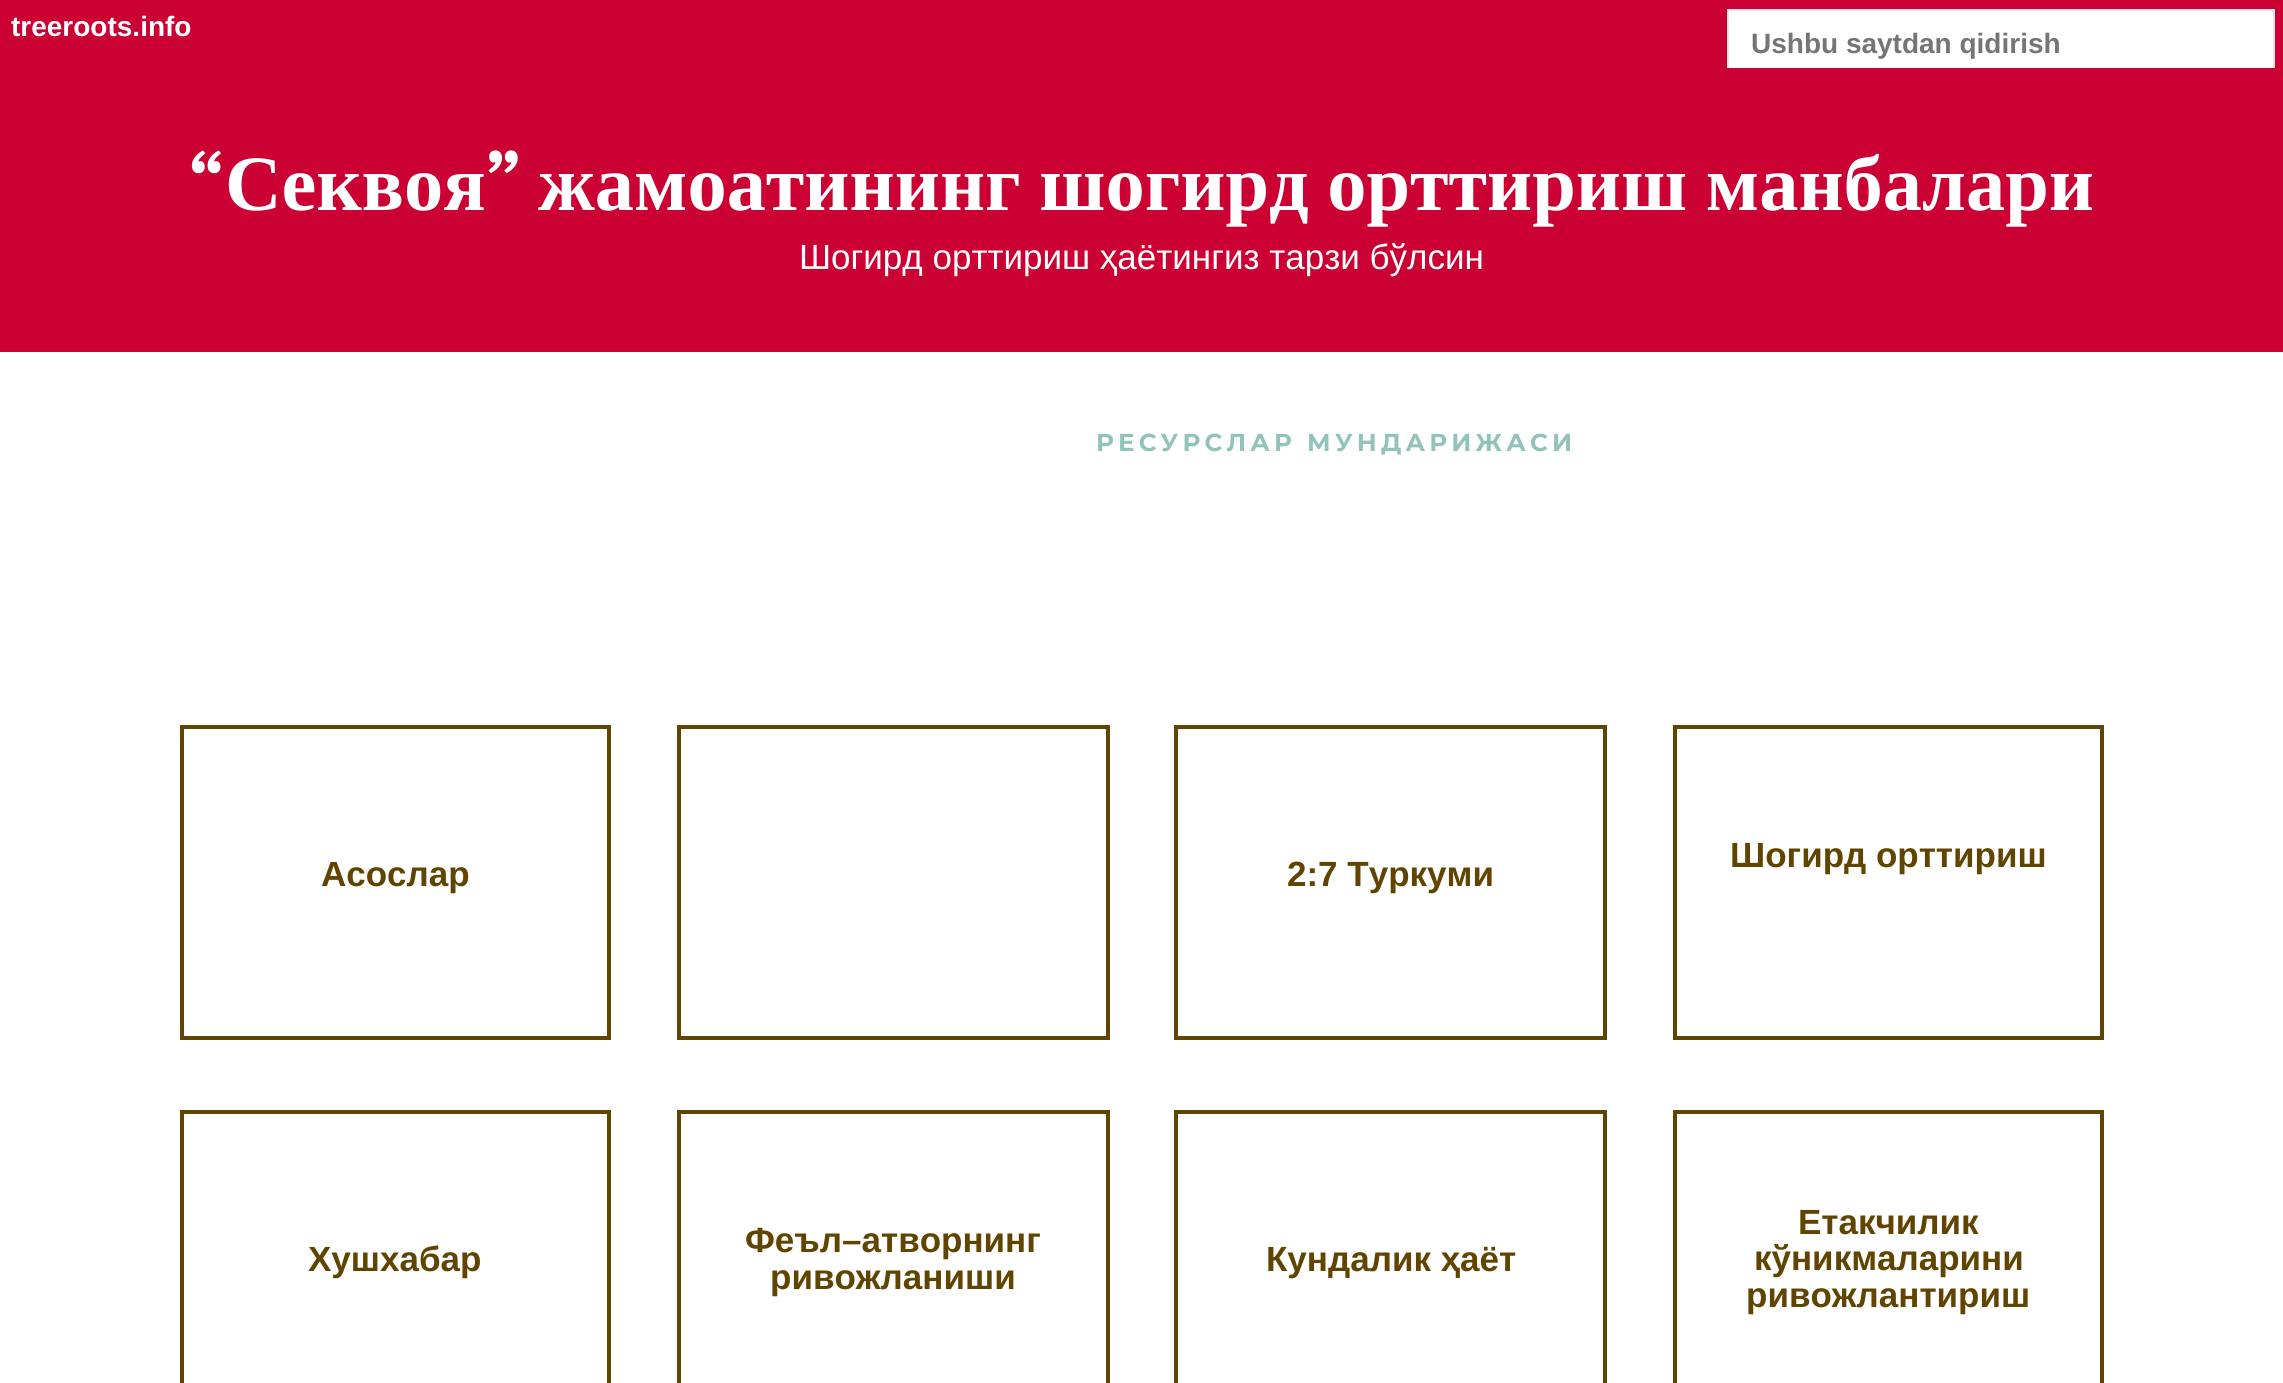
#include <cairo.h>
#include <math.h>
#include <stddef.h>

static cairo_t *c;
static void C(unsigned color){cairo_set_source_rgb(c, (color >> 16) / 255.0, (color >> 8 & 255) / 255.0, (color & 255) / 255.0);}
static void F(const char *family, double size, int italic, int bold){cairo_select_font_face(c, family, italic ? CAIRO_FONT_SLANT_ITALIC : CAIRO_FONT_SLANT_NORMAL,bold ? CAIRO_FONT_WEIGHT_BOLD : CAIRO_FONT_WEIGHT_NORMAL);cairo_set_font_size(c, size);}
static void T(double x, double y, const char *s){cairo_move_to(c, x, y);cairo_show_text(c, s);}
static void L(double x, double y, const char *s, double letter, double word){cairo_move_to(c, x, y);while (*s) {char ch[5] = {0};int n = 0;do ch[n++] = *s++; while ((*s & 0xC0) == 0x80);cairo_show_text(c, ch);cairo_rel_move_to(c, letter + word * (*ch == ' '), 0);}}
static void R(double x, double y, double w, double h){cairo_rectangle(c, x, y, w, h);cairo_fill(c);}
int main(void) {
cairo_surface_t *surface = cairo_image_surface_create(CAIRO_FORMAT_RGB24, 2283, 1383);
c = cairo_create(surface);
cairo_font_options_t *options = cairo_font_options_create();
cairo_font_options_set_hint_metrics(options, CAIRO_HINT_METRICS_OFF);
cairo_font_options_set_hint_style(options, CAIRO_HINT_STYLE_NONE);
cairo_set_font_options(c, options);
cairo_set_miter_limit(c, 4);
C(0xffffff);
cairo_paint(c);
C(0xcb0133);
R(0,0,2283,68);
F("Liberation Sans",28,0,1);
C(0xffffff);
T(11,36,"treeroots.info");
R(1729,11,544,57);
cairo_rectangle(c,1728,10,546,68);
C(0xe5e5e5);
cairo_stroke(c);
C(0x757575);
T(1751,53,"Ushbu saytdan qidirish");
C(0xcb0133);
R(0,68,2283,284);
F("Domine",78.4,0,1);
C(0xffffff);
T(189,210,"“");
F("Liberation Serif",78.4,0,1);
T(225,210,"Секвоя");
F("Domine",78.4,0,1);
T(485,210,"”");
F("Liberation Serif",78.4,0,1);
L(538,210,"жамоатининг шогирд орттириш манбалари",0,-1);
F("Liberation Sans",35,0,0);
T(799,269,"Шогирд орттириш ҳаётингиз тарзи бўлсин");
F("Montserrat",24.5,0,1);
C(0x91c3ba);
L(1096,451,"РЕСУРСЛАР МУНДАРИЖАСИ",4.2,0);
cairo_rectangle(c,182,727,427,311);
C(0x614400);
cairo_set_line_width(c,4);
cairo_stroke(c);
F("Liberation Sans",35,0,1);
T(321,886,"Асослар");
cairo_rectangle(c,679,727,429,311);
cairo_stroke(c);
cairo_rectangle(c,1176,727,429,311);
cairo_stroke(c);
T(1287,886,"2:7 Туркуми");
cairo_rectangle(c,1675,727,427,311);
cairo_stroke(c);
T(1730,867,"Шогирд орттириш");
cairo_rectangle(c,182,1112,427,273);
cairo_stroke(c);
T(308,1271,"Хушхабар");
cairo_rectangle(c,679,1112,429,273);
cairo_stroke(c);
T(745,1252,"Феъл–атворнинг");
T(770,1289,"ривожланиши");
cairo_rectangle(c,1176,1112,429,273);
cairo_stroke(c);
T(1266,1271,"Кундалик ҳаёт");
cairo_rectangle(c,1675,1112,427,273);
cairo_stroke(c);
T(1798,1234,"Етакчилик");
T(1754,1270,"кўникмаларини");
T(1746,1307,"ривожлантириш");
cairo_surface_write_to_png(surface, "o.png");
cairo_font_options_destroy(options);
cairo_destroy(c);
cairo_surface_destroy(surface);
return 0;
}
